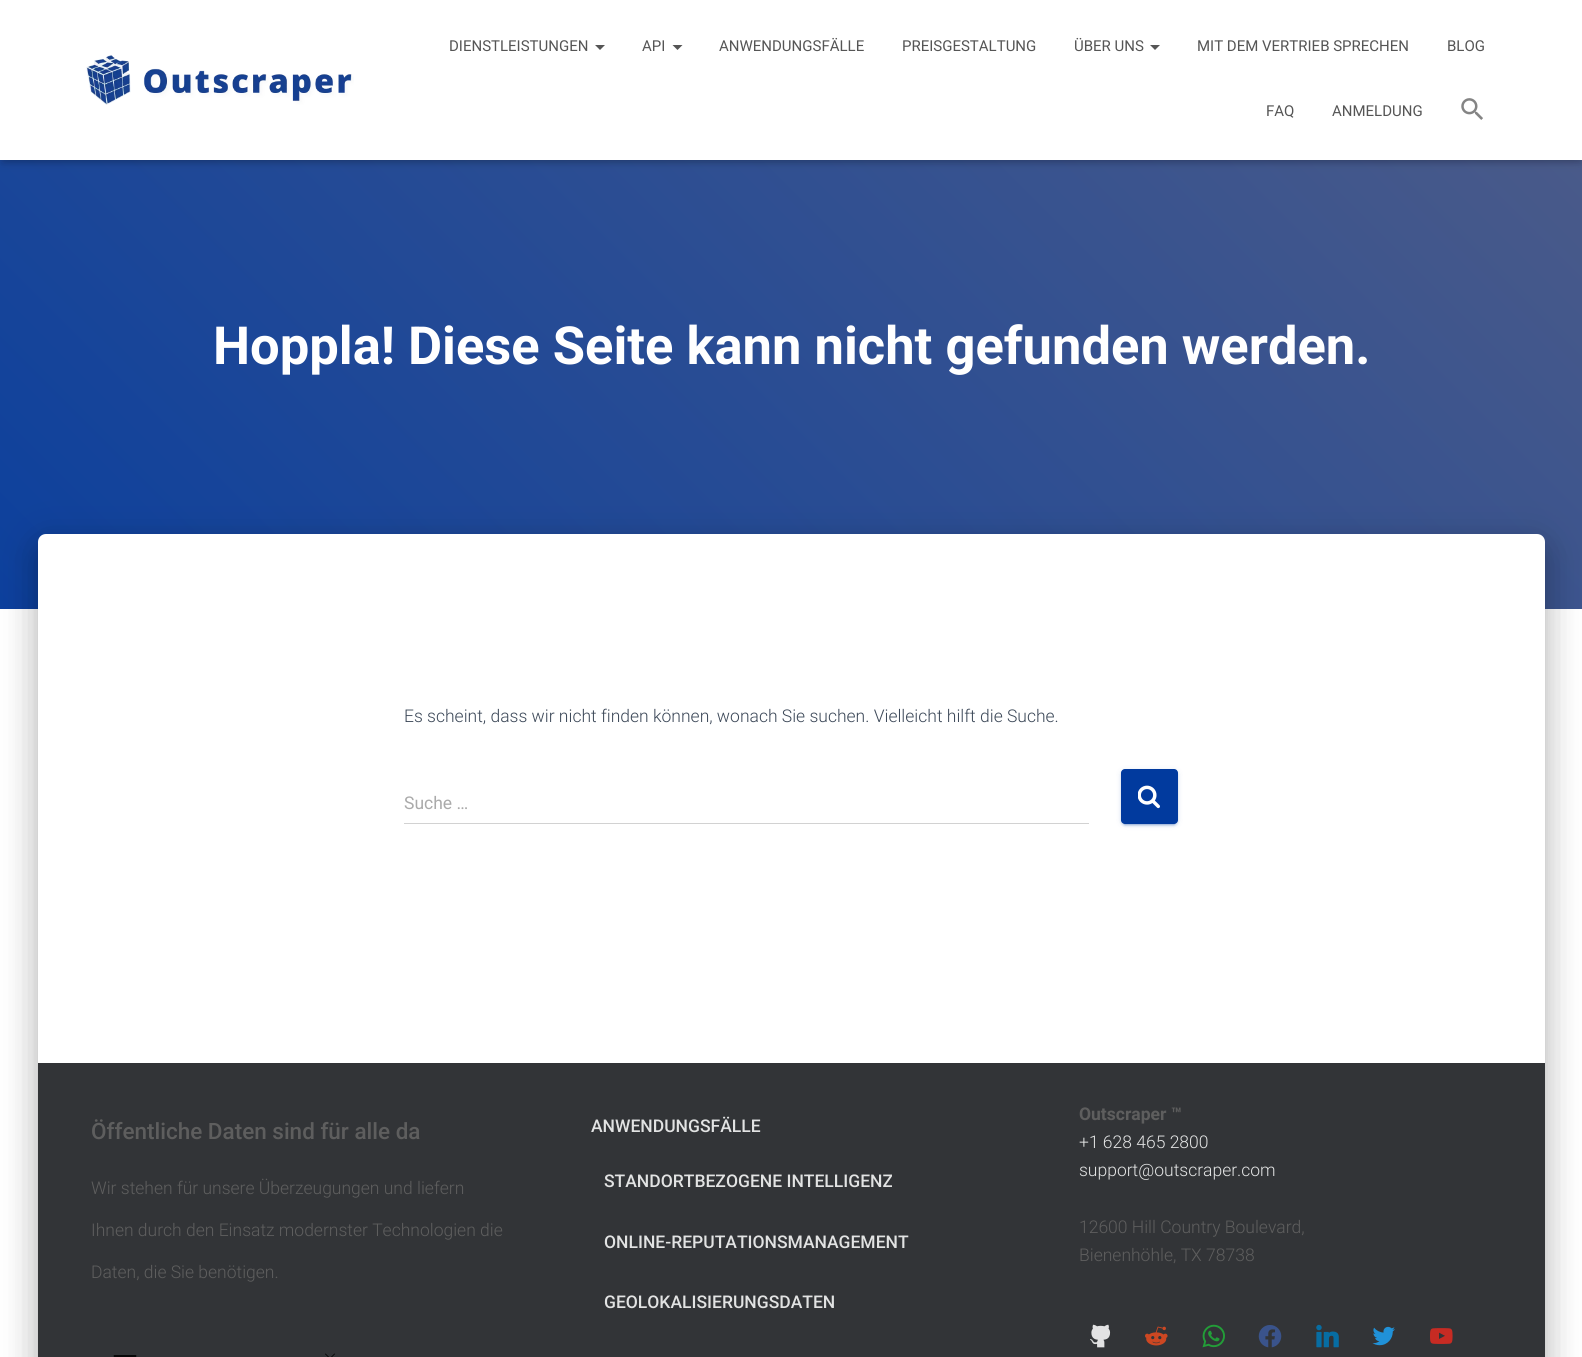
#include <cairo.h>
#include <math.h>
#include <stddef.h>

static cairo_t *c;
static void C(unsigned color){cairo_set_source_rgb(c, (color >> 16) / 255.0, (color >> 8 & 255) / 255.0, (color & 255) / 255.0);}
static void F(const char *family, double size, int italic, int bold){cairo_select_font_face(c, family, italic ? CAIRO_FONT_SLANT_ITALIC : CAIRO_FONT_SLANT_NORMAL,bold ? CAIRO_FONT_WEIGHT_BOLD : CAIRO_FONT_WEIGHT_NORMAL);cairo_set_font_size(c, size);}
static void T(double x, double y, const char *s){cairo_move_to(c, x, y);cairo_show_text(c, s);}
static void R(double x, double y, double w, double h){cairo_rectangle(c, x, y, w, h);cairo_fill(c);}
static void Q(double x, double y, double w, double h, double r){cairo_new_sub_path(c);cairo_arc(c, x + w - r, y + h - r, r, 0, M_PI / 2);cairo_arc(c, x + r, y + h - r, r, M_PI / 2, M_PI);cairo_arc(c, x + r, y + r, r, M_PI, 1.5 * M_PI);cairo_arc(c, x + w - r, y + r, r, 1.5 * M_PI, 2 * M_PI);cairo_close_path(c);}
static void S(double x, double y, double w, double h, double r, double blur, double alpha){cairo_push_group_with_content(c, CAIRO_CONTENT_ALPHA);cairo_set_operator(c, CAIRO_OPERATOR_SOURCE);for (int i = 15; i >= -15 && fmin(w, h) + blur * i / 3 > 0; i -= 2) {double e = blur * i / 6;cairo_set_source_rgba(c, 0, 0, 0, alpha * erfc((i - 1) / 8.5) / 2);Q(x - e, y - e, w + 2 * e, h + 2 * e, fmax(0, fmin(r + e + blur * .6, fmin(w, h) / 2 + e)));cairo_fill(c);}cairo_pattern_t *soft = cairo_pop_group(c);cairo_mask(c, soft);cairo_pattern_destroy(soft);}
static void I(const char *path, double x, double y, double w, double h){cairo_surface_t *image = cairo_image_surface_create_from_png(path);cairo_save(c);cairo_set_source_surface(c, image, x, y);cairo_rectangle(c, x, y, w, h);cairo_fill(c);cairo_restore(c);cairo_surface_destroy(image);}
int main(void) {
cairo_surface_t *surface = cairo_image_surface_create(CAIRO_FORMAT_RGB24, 1582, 1357);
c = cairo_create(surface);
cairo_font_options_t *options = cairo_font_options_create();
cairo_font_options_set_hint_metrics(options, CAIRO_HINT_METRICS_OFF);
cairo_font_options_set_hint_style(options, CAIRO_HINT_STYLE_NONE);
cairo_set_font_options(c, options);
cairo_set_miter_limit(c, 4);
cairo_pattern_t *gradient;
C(0xffffff);
cairo_paint(c);
gradient = cairo_pattern_create_linear(243,852,1339,-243);
cairo_pattern_add_color_stop_rgba(gradient,0,0.047,0.251,0.616,1);
cairo_pattern_add_color_stop_rgba(gradient,1,0.306,0.361,0.533,1);
cairo_set_source(c,gradient);
cairo_pattern_destroy(gradient);
R(0,160,1582,449);
C(0x000000);
S(3,8,1577,155,0,3,.1);
S(0,1,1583,160,0,6,.12);
S(8,9,1567,145,0,6,.42);
C(0xffffff);
R(0,0,1582,160);
I("1.png",86,55,268,50);
F("Roboto",15,0,0);
C(0x555555);
T(449,51,"DIENSTLEISTUNGEN");
cairo_new_path(c);
cairo_move_to(c,595,45);
cairo_line_to(c,605,45);
cairo_line_to(c,600,50);
cairo_close_path(c);
cairo_fill(c);
T(642,51,"API");
cairo_new_path(c);
cairo_move_to(c,672.5,45);
cairo_line_to(c,682.5,45);
cairo_line_to(c,677.5,50);
cairo_close_path(c);
cairo_fill(c);
T(719,51,"ANWENDUNGSFÄLLE");
T(902,51,"PREISGESTALTUNG");
T(1074,51,"ÜBER UNS");
cairo_new_path(c);
cairo_move_to(c,1150,45);
cairo_line_to(c,1160,45);
cairo_line_to(c,1155,50);
cairo_close_path(c);
cairo_fill(c);
T(1197,51,"MIT DEM VERTRIEB SPRECHEN");
T(1447,51,"BLOG");
T(1266,116,"FAQ");
T(1332,116,"ANMELDUNG");
I("2.png",1461,98,22,22);
F("Roboto",52.5,0,1);
C(0xffffff);
T(213,364,"Hoppla! Diese Seite kann nicht gefunden werden.");
C(0x000000);
S(44,550,1495,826,1,6,.2);
S(31,535,1520,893,14,19,.12);
S(35,551,1513,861,10,15,.14);
C(0xffffff);
cairo_new_path(c);
cairo_move_to(c,46,534);
cairo_line_to(c,1537,534);
cairo_curve_to(c,1541.5,534,1545,537.5,1545,542);
cairo_line_to(c,1545,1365);
cairo_line_to(c,38,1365);
cairo_line_to(c,38,542);
cairo_curve_to(c,38,537.5,41.5,534,46,534);
cairo_close_path(c);
cairo_fill(c);
F("Roboto Light",17.5,0,0);
C(0x3c4858);
T(404,722,"Es scheint, dass wir nicht finden können, wonach Sie suchen. Vielleicht hilft die Suche.");
F("Roboto",17.5,0,0);
C(0xaaaaaa);
T(404,809,"Suche …");
C(0xd2d2d2);
R(404,823,685,1);
C(0x013a9e);
S(1121,770,57,55,4,3,.12);
S(1124,775,51,50,1,.5,.2);
S(1121,771,57,55,4,1,.14);
C(0x013a9e);
Q(1121,769,57,55,4);
cairo_fill(c);
I("3.png",1138,785,22,24);
C(0x323437);
R(38,1063,1507,294);
F("Roboto Medium",22.5,0,0);
C(0x5e5e5e);
T(91,1139,"Öffentliche Daten sind für alle da");
F("Roboto Light",17.5,0,0);
T(91,1194,"Wir stehen für unsere Überzeugungen und liefern");
T(91,1236,"Ihnen durch den Einsatz modernster Technologien die");
T(91,1278,"Daten, die Sie benötigen.");
I("4.png",325,1353,10,4);
I("5.png",113,1355,24,2);
F("Roboto Medium",17.5,0,0);
C(0xe2e3e3);
T(591,1132,"ANWENDUNGSFÄLLE");
T(604,1187,"STANDORTBEZOGENE INTELLIGENZ");
T(604,1248,"ONLINE-REPUTATIONSMANAGEMENT");
T(604,1308,"GEOLOKALISIERUNGSDATEN");
F("Roboto",17.5,0,1);
C(0x5e5e5e);
T(1079,1120,"Outscraper ™");
F("Roboto Light",17.5,0,0);
C(0xe2e3e3);
T(1079,1148,"+1 628 465 2800");
T(1079,1176,"support@outscraper.com");
C(0x5e5e5e);
T(1079,1233,"12600 Hill Country Boulevard,");
T(1079,1261,"Bienenhöhle, TX 78738");
I("6.png",1090,1324,21,24);
I("7.png",1145,1326,23,20);
I("8.png",1202,1324,23,24);
I("9.png",1258,1325,24,23);
I("10.png",1316,1324,23,24);
I("11.png",1372,1326,23,20);
I("12.png",1430,1328,23,16);
cairo_surface_write_to_png(surface, "o.png");
cairo_font_options_destroy(options);
cairo_destroy(c);
cairo_surface_destroy(surface);
return 0;
}
